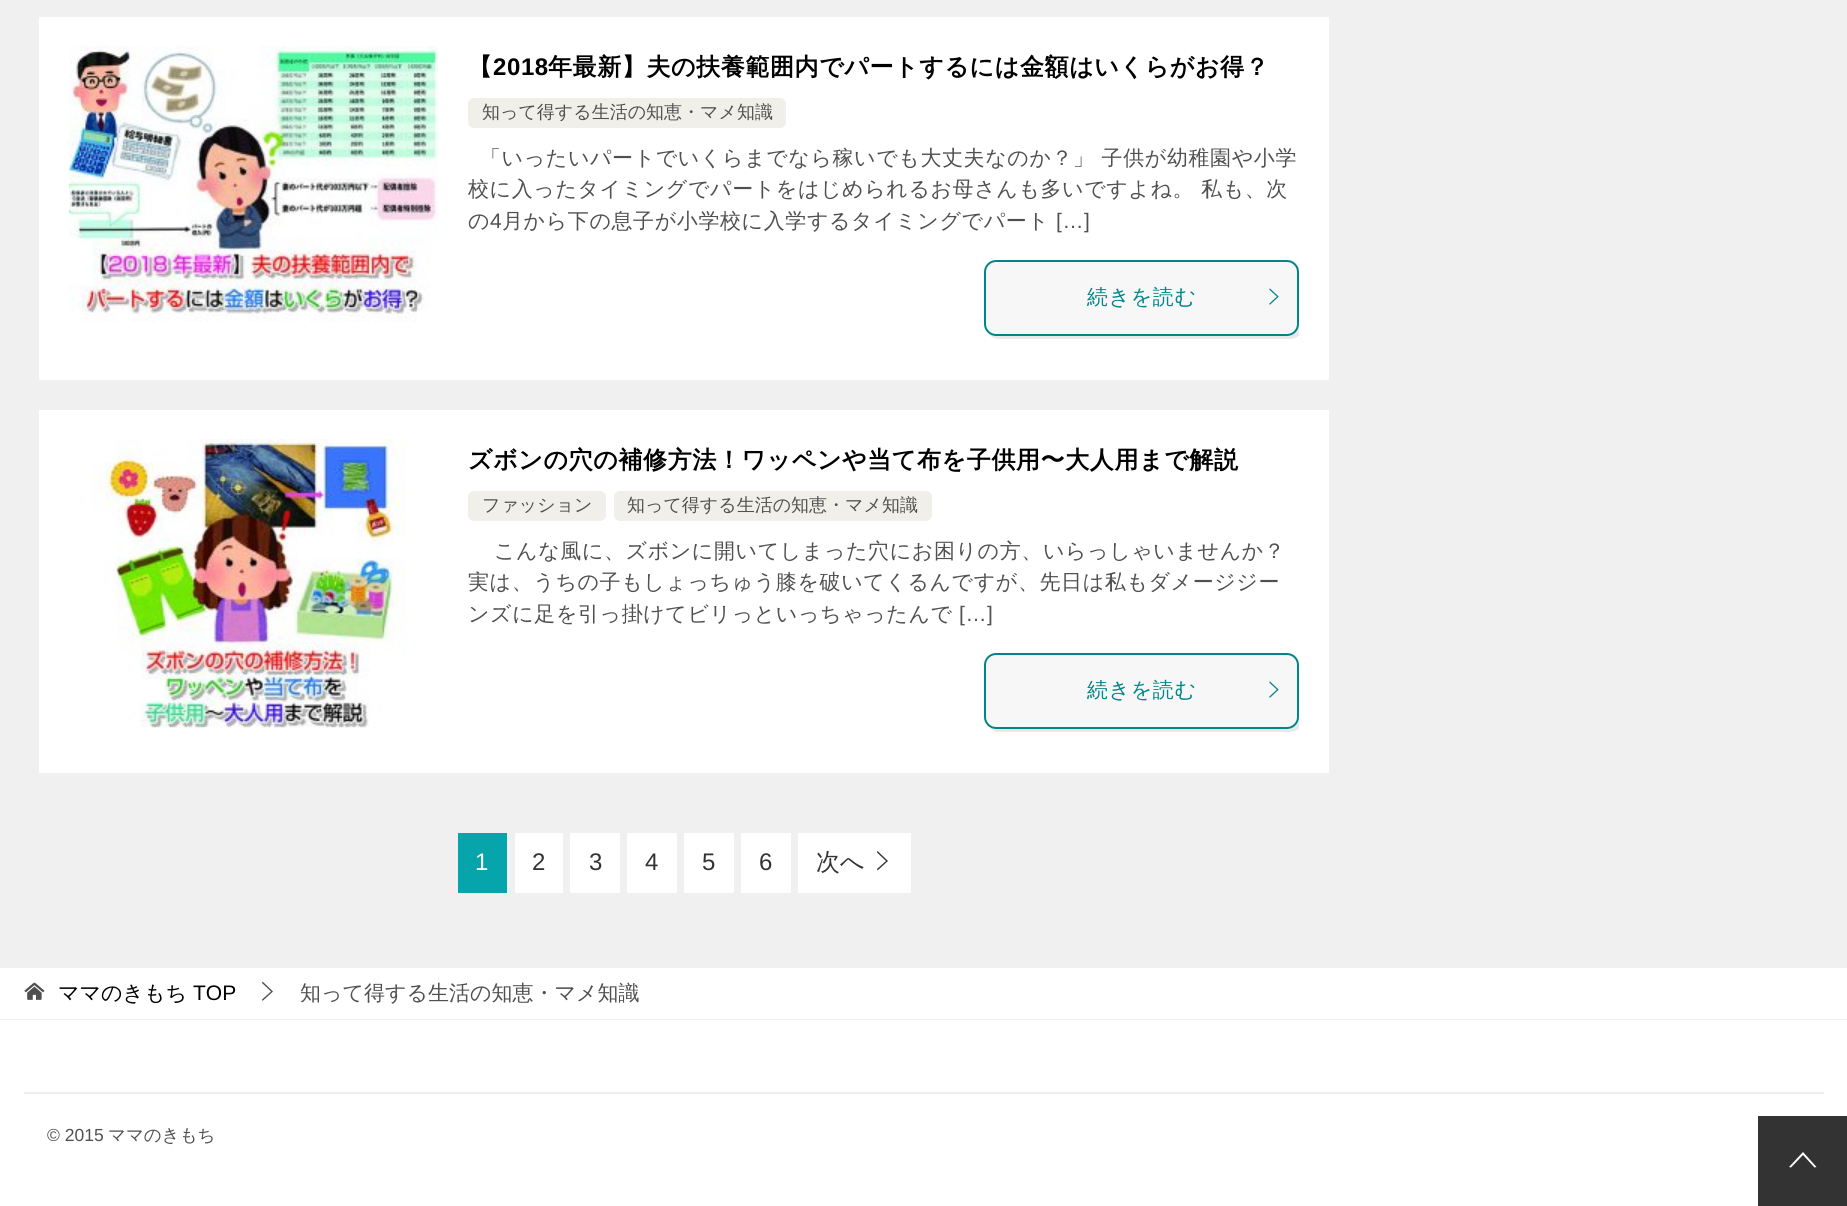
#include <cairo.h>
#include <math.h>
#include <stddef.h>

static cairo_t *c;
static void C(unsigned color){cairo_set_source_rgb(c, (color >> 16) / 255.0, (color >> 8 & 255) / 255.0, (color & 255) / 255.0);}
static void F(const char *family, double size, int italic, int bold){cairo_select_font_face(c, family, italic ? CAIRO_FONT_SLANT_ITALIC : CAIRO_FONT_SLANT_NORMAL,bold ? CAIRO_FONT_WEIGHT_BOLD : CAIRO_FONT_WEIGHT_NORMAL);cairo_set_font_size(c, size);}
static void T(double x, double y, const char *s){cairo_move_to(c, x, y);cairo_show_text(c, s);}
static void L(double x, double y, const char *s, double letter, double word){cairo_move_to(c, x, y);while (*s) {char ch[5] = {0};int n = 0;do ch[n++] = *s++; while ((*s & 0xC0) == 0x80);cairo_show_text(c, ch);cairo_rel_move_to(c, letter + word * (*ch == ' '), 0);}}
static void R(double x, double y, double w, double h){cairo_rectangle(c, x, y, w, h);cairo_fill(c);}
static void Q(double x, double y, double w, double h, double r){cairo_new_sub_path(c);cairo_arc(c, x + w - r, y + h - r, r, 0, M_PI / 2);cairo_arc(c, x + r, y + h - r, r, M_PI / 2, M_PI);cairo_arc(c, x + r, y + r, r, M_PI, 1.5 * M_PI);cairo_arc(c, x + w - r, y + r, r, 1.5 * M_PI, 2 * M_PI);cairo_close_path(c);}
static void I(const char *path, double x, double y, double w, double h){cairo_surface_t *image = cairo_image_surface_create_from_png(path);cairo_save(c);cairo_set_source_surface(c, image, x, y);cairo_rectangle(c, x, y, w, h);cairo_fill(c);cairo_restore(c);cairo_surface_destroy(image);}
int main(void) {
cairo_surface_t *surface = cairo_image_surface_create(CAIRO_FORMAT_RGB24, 1847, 1206);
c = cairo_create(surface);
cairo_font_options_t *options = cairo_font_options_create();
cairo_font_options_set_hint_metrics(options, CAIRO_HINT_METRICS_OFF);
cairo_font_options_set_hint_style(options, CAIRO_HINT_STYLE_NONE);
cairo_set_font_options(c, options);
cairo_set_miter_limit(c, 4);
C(0xf0f0f0);
cairo_paint(c);
C(0xffffff);
R(39,17,1290,363);
I("1.png",69,46,369,276);
F("WenQuanYi Zen Hei",24,0,1);
C(0x000000);
L(468,75,"【",.6,0);
F("Liberation Sans",24,0,1);
L(493,75,"2018",.6,0);
F("WenQuanYi Zen Hei",24,0,1);
L(548,75,"年最新】夫の扶養範囲内でパートするには金額はいくらがお得？",.6,0);
C(0xf0efe9);
Q(468,98,318,30,6);
cairo_fill(c);
F("WenQuanYi Zen Hei Medium",18,0,0);
C(0x505050);
T(482,118,"知って得する生活の知恵・マメ知識");
F("WenQuanYi Zen Hei Medium",21,0,0);
L(480,165,"「いったいパートでいくらまでなら稼いでも大丈夫なのか？」 子供が幼稚園や小学",.6,0);
L(468,196,"校に入ったタイミングでパートをはじめられるお母さんも多いですよね。 私も、次",.6,0);
L(468,228,"の",.6,0);
F("Liberation Sans",21,0,0);
L(490,228,"4",.6,0);
F("WenQuanYi Zen Hei Medium",21,0,0);
L(502,228,"月から下の息子が小学校に入学するタイミングでパート",.6,0);
F("Liberation Sans",21,0,0);
L(1056,228,"[…]",.6,0);
cairo_save(c);
cairo_rectangle(c,468,47,831,310);
cairo_clip(c);
C(0xe9e9e9);
cairo_new_path(c);
cairo_move_to(c,989,334);
cairo_curve_to(c,991,337,995,339,999,339);
cairo_line_to(c,1290,339);
cairo_curve_to(c,1297,339,1302,334,1302,327);
cairo_line_to(c,1302,275);
cairo_curve_to(c,1302,271,1300,268,1297,266);
cairo_curve_to(c,1298,267,1299,269,1299,272);
cairo_line_to(c,1299,324);
cairo_curve_to(c,1299,331,1294,336,1287,336);
cairo_line_to(c,996,336);
cairo_curve_to(c,993,336,991,335,989,334);
cairo_close_path(c);
cairo_fill(c);
cairo_restore(c);
C(0xf7f7f7);
Q(985,261,313,74,11);
cairo_fill_preserve(c);
C(0x00858a);
cairo_stroke(c);
F("WenQuanYi Zen Hei Medium",21,0,0);
L(1087,304,"続きを読む",.6,0);
I("2.png",1269,288,10,17);
C(0xffffff);
R(39,410,1290,363);
I("3.png",92,439,314,290);
F("WenQuanYi Zen Hei",24,0,1);
C(0x000000);
L(468,468,"ズボンの穴の補修方法！ワッペンや当て布を子供用〜大人用まで解説",.6,0);
C(0xf0efe9);
Q(468,491,138,30,6);
cairo_fill(c);
F("WenQuanYi Zen Hei Medium",18,0,0);
C(0x505050);
T(482,511,"ファッション");
C(0xf0efe9);
Q(614,491,318,30,6);
cairo_fill(c);
C(0x505050);
T(627,511,"知って得する生活の知恵・マメ知識");
F("WenQuanYi Zen Hei Medium",21,0,0);
L(494,558,"こんな風に、ズボンに開いてしまった穴にお困りの方、いらっしゃいませんか？",.6,0);
L(468,589,"実は、うちの子もしょっちゅう膝を破いてくるんですが、先日は私もダメージジー",.6,0);
L(468,621,"ンズに足を引っ掛けてビリっといっちゃったんで",.6,0);
F("Liberation Sans",21,0,0);
L(959,621,"[…]",.6,0);
cairo_save(c);
cairo_rectangle(c,468,440,831,310);
cairo_clip(c);
C(0xe9e9e9);
cairo_new_path(c);
cairo_move_to(c,989,727);
cairo_curve_to(c,991,730,995,732,999,732);
cairo_line_to(c,1290,732);
cairo_curve_to(c,1297,732,1302,727,1302,720);
cairo_line_to(c,1302,668);
cairo_curve_to(c,1302,664,1300,661,1297,659);
cairo_curve_to(c,1298,660,1299,662,1299,664);
cairo_line_to(c,1299,717);
cairo_curve_to(c,1299,724,1294,729,1287,729);
cairo_line_to(c,996,729);
cairo_curve_to(c,993,729,991,728,989,727);
cairo_close_path(c);
cairo_fill(c);
cairo_restore(c);
C(0xf7f7f7);
Q(985,654,313,74,11);
cairo_fill_preserve(c);
C(0x00858a);
cairo_stroke(c);
F("WenQuanYi Zen Hei Medium",21,0,0);
L(1087,697,"続きを読む",.6,0);
I("2.png",1269,681,10,17);
C(0x05a5ab);
R(458,833,49,60);
F("Liberation Sans",24,0,0);
C(0xffffff);
T(475,870,"1");
R(515,833,48,60);
C(0x333333);
T(532,870,"2");
C(0xffffff);
R(570,833,50,60);
C(0x333333);
T(589,870,"3");
C(0xffffff);
R(627,833,50,60);
C(0x333333);
T(645,870,"4");
C(0xffffff);
R(684,833,50,60);
C(0x333333);
T(702,870,"5");
C(0xffffff);
R(741,833,50,60);
C(0x333333);
T(759,870,"6");
C(0xffffff);
R(798,833,113,60);
F("WenQuanYi Zen Hei Medium",24,0,0);
C(0x333333);
T(816,870,"次へ");
cairo_new_path(c);
cairo_move_to(c,877.5,870.5);
cairo_line_to(c,877,869);
cairo_line_to(c,886,861);
cairo_line_to(c,877,852.5);
cairo_line_to(c,877.5,851);
cairo_line_to(c,888,861);
cairo_close_path(c);
cairo_fill(c);
C(0xffffff);
R(0,968,1847,51);
I("4.png",24,982,21,18);
F("WenQuanYi Zen Hei Medium",21,0,0);
C(0x000000);
T(58,1000,"ママのきもち");
F("Liberation Sans",21,0,0);
T(193,1000,"TOP");
C(0x505050);
cairo_new_path(c);
cairo_move_to(c,262.5,1001);
cairo_line_to(c,262,999.5);
cairo_line_to(c,271,991.5);
cairo_line_to(c,262,983);
cairo_line_to(c,262.5,981.5);
cairo_line_to(c,273,991.5);
cairo_close_path(c);
cairo_fill(c);
F("WenQuanYi Zen Hei Medium",21,0,0);
T(300,1000,"知って得する生活の知恵・マメ知識");
C(0xffffff);
R(0,1020,1847,186);
C(0xeeeeee);
R(24,1092,1800,2);
F("Liberation Sans",17.5,0,0);
C(0x505050);
T(47,1141,"© 2015");
F("WenQuanYi Zen Hei Medium",17.5,0,0);
T(108,1141,"ママのきもち");
C(0x333333);
R(1758,1116,89,90);
C(0xffffff);
cairo_new_path(c);
cairo_move_to(c,1803,1152);
cairo_line_to(c,1816.5,1167);
cairo_line_to(c,1814.5,1167.5);
cairo_line_to(c,1803,1155);
cairo_line_to(c,1791,1167.5);
cairo_line_to(c,1789,1167);
cairo_close_path(c);
cairo_fill(c);
cairo_surface_write_to_png(surface, "o.png");
cairo_font_options_destroy(options);
cairo_destroy(c);
cairo_surface_destroy(surface);
return 0;
}
